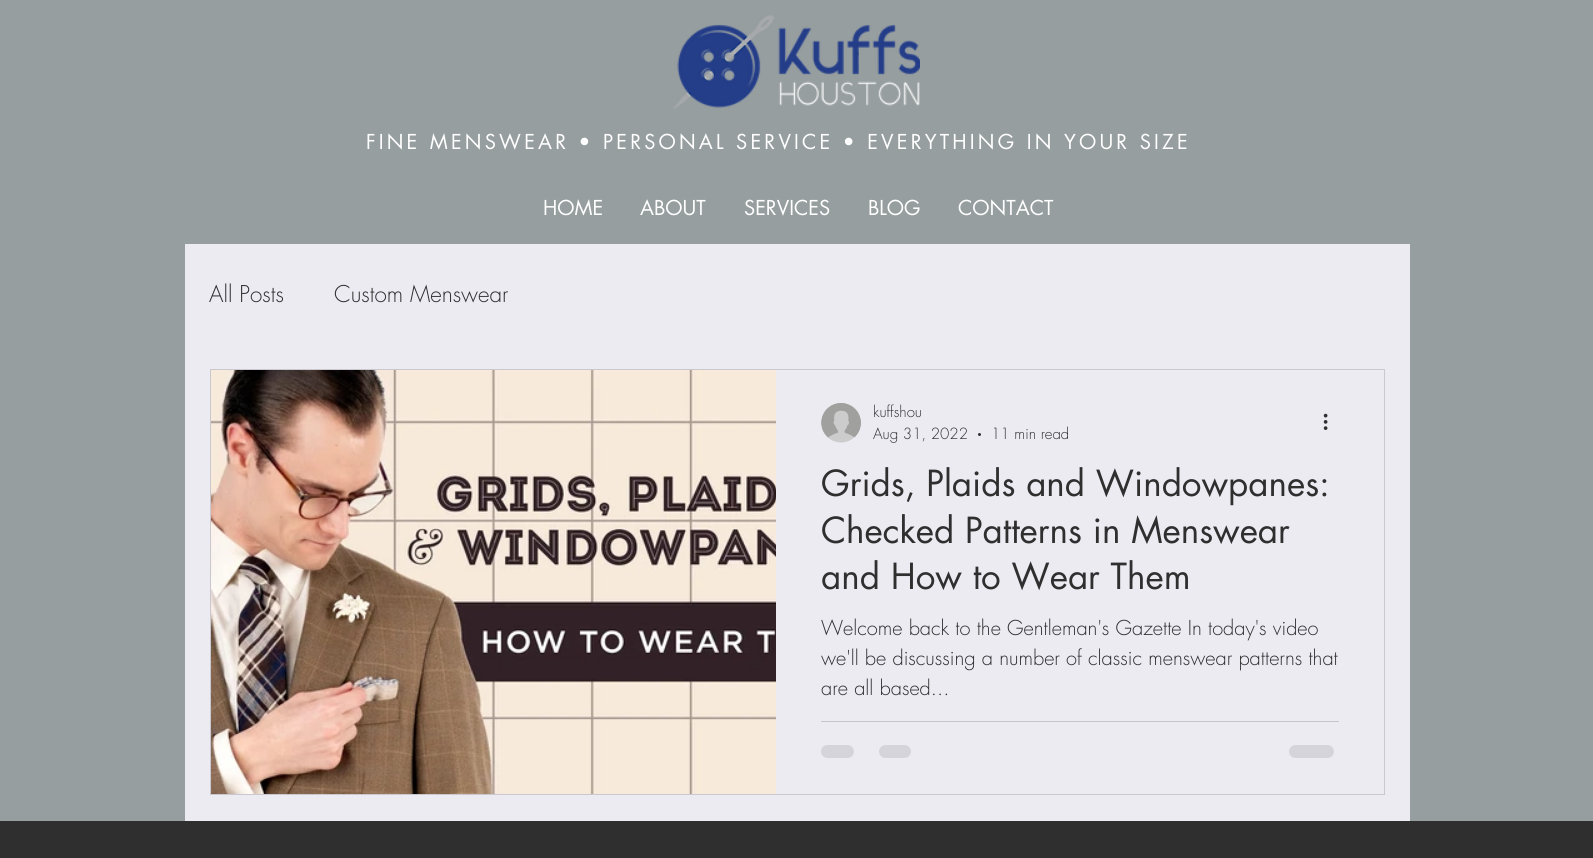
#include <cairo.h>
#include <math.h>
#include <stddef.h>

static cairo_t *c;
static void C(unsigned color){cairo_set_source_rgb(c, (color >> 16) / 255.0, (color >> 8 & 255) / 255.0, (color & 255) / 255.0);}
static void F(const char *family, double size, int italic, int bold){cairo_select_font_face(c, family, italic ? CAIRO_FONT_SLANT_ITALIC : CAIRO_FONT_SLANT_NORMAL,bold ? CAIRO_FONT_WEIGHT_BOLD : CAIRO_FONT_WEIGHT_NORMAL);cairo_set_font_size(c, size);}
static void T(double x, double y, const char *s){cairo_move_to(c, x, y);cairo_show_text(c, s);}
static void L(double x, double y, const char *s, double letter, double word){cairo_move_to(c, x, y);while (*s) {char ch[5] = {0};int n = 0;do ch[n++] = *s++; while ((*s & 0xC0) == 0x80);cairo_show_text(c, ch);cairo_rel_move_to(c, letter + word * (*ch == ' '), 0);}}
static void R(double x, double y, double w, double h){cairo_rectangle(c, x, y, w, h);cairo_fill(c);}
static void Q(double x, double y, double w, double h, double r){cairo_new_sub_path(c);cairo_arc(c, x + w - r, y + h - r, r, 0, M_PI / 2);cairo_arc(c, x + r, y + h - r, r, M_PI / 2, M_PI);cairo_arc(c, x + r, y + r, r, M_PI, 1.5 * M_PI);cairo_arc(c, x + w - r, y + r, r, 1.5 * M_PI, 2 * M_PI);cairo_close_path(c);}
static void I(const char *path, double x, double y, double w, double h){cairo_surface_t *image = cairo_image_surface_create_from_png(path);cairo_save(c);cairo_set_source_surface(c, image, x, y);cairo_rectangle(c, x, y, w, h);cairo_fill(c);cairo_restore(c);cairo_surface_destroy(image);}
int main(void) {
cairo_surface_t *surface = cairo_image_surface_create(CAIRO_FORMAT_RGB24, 1593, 858);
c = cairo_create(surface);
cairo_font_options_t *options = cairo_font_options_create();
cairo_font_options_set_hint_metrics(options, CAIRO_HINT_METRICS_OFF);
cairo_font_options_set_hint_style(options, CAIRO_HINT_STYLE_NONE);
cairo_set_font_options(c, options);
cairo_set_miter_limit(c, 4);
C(0x979ea0);
cairo_paint(c);
I("1.png",673,15,247,94);
F("futura",20,0,0);
C(0xffffff);
L(366,149,"FINE MENSWEAR • PERSONAL SERVICE • EVERYTHING IN YOUR SIZE",3.2,0);
T(543,215,"HOME");
T(640,215,"ABOUT");
T(744,215,"SERVICES");
T(868,215,"BLOG");
T(958,215,"CONTACT");
C(0xedebf2);
R(185,244,1225,577);
F("futura Light",22.5,0,0);
C(0x2f2f30);
T(209,302,"All Posts");
T(334,302,"Custom Menswear");
cairo_rectangle(c,210.5,369.5,1174,425);
C(0xcac8ce);
cairo_set_line_width(c,1);
cairo_stroke(c);
I("2.png",211,370,565,424);
I("3.png",821,403,40,40);
F("futura Light",15,0,0);
C(0x2f2f30);
T(873,417,"kuffshou");
T(873,439,"Aug 31, 2022");
cairo_new_path(c);
cairo_arc(c,979.5,434.5,1.5,0,2 * M_PI);
cairo_fill(c);
T(991,439,"11 min read");
I("4.png",1323,413,5,17);
F("futura",35,0,0);
T(821,496,"Grids, Plaids and Windowpanes:");
T(821,543,"Checked Patterns in Menswear");
T(821,589,"and How to Wear Them");
F("futura Light",20,0,0);
T(821,635,"Welcome back to the Gentleman's Gazette In today's video");
T(821,665,"we'll be discussing a number of classic menswear patterns that");
T(821,695,"are all based...");
C(0xc7c5cb);
R(821,721,518,1);
C(0xd6d4db);
Q(821,745,33,13,6.5);
cairo_fill(c);
Q(879,745,32,13,6.5);
cairo_fill(c);
Q(1289,745,45,13,6.5);
cairo_fill(c);
C(0x2f2f30);
R(0,821,1593,37);
cairo_surface_write_to_png(surface, "o.png");
cairo_font_options_destroy(options);
cairo_destroy(c);
cairo_surface_destroy(surface);
return 0;
}
